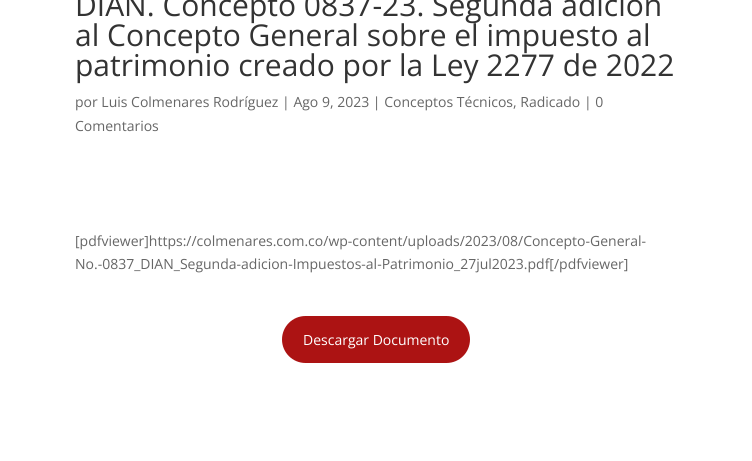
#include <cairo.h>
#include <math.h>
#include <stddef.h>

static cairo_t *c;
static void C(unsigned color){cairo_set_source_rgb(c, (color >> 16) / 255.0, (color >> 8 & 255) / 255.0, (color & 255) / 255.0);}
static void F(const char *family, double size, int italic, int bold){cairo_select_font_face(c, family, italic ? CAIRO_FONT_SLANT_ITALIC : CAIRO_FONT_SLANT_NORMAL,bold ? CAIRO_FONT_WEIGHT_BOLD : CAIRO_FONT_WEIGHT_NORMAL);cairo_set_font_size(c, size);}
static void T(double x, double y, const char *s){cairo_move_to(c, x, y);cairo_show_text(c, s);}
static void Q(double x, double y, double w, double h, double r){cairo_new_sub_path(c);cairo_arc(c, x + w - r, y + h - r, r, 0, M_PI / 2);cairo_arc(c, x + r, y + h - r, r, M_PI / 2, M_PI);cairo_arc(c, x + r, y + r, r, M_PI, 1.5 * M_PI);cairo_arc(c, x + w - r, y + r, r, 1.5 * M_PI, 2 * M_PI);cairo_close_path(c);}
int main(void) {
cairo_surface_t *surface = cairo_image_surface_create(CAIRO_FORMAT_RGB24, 752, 461);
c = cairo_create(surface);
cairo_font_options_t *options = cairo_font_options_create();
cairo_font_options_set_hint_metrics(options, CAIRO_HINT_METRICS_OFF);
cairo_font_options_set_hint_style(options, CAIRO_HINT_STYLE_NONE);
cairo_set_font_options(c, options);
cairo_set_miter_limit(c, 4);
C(0xffffff);
cairo_paint(c);
F("Open Sans",30,0,0);
C(0x333333);
T(75,16,"DIAN. Concepto 0837-23. Segunda adición");
T(75,46,"al Concepto General sobre el impuesto al");
T(75,76,"patrimonio creado por la Ley 2277 de 2022");
F("Open Sans",14,0,0);
C(0x666666);
T(75,107,"por Luis Colmenares Rodríguez | Ago 9, 2023 | Conceptos Técnicos, Radicado | 0");
T(75,131,"Comentarios");
T(75,246,"[pdfviewer]https://colmenares.com.co/wp-content/uploads/2023/08/Concepto-General-");
T(75,269,"No.-0837_DIAN_Segunda-adicion-Impuestos-al-Patrimonio_27jul2023.pdf[/pdfviewer]");
C(0xac1313);
Q(282,316,188,47,23.5);
cairo_fill(c);
C(0xffffff);
T(303,345,"Descargar Documento");
cairo_surface_write_to_png(surface, "o.png");
cairo_font_options_destroy(options);
cairo_destroy(c);
cairo_surface_destroy(surface);
return 0;
}
